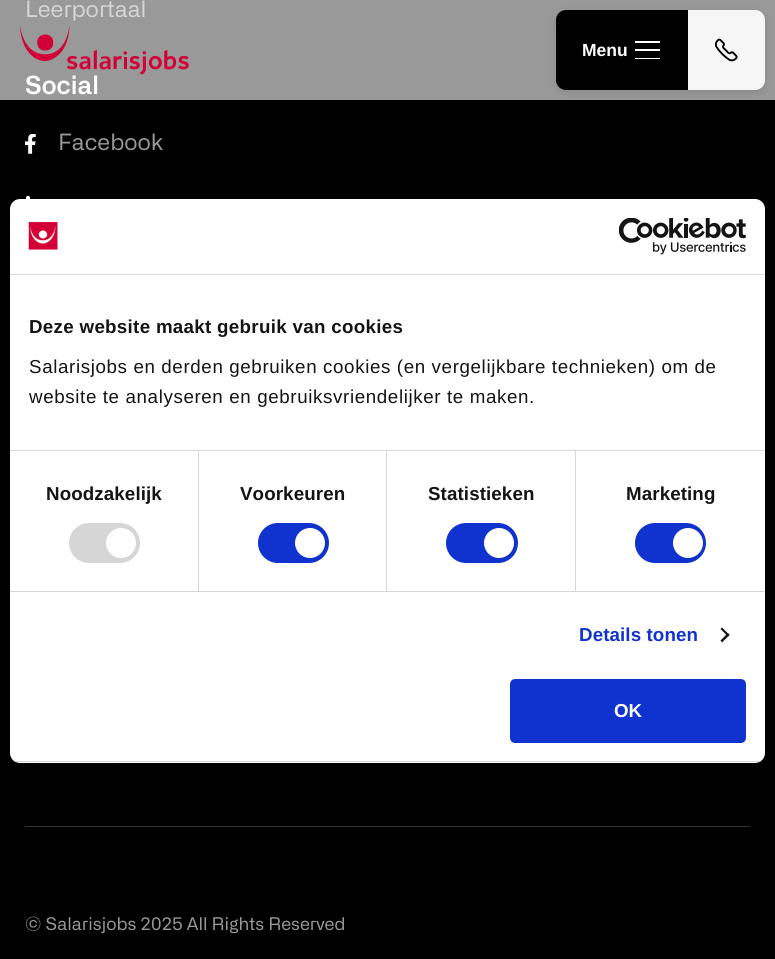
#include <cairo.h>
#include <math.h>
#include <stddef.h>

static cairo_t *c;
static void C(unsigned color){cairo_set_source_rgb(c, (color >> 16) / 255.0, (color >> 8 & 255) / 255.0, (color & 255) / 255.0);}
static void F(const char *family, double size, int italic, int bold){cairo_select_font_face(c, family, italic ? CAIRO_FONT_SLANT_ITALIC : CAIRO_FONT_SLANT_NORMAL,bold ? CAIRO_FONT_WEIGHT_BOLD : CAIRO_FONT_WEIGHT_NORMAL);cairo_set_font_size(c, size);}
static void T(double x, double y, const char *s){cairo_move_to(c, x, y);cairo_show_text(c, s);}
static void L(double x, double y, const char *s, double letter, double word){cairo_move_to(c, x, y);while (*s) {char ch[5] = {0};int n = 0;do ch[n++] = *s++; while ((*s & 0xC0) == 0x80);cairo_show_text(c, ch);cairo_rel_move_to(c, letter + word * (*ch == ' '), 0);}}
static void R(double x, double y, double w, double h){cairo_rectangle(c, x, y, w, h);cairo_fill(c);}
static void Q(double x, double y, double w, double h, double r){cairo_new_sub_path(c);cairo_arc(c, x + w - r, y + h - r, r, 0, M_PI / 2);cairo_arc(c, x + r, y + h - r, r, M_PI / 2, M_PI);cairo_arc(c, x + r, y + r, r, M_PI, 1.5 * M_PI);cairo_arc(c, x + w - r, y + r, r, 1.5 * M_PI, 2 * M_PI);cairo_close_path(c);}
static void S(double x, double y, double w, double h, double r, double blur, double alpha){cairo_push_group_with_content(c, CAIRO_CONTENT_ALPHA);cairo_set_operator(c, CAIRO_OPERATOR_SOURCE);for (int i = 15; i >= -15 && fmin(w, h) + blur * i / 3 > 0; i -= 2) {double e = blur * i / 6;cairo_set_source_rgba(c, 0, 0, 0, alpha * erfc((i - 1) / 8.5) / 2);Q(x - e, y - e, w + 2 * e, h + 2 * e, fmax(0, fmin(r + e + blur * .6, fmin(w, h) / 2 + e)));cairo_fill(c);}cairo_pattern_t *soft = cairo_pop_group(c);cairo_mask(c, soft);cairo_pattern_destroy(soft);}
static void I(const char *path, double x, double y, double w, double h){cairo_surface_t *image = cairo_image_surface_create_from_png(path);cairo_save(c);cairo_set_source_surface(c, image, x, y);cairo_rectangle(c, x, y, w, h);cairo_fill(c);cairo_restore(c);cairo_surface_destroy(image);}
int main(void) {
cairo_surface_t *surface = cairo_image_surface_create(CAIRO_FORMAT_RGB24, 775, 959);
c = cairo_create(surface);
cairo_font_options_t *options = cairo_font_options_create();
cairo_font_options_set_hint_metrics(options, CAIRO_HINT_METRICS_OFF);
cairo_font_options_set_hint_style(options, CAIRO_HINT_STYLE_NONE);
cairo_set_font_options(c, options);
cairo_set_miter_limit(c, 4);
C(0x000000);
cairo_paint(c);
C(0x999999);
R(0,0,775,100);
F("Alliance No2",22.5,0,0);
C(0xd6d6d6);
T(25,17,"Leerportaal");
F("Alliance No2 SemiBold",25,0,0);
C(0xffffff);
T(25,94,"Social");
I("1.png",25,134,11,20);
F("Alliance No2",22.5,0,0);
C(0x999999);
T(58,150,"Facebook");
I("2.png",25,195,6,4);
I("3.png",34,763,82,1);
C(0x333333);
R(25,826,725,1);
F("Alliance No2",17.5,0,0);
C(0x999999);
T(25,930,"© Salarisjobs 2025 All Rights Reserved");
I("4.png",20,25,169,50);
C(0x000000);
S(556,13,209,80,10,5,.1);
C(0x000000);
cairo_new_path(c);
cairo_move_to(c,566,10);
cairo_line_to(c,688,10);
cairo_line_to(c,688,90);
cairo_line_to(c,566,90);
cairo_curve_to(c,560.5,90,556,85.5,556,80);
cairo_line_to(c,556,20);
cairo_curve_to(c,556,14.5,560.5,10,566,10);
cairo_close_path(c);
cairo_fill(c);
F("Liberation Sans",17.5,0,1);
C(0xffffff);
T(582,56,"Menu");
R(635,41,25,2);
R(635,49,25,2);
R(635,58,25,1);
C(0xf6f6f6);
cairo_new_path(c);
cairo_move_to(c,688,10);
cairo_line_to(c,755,10);
cairo_curve_to(c,760.5,10,765,14.5,765,20);
cairo_line_to(c,765,80);
cairo_curve_to(c,765,85.5,760.5,90,755,90);
cairo_line_to(c,688,90);
cairo_close_path(c);
cairo_fill(c);
I("5.png",714,38,24,24);
C(0xffffff);
Q(10,199,755,564,10);
cairo_fill(c);
C(0xd6d6d6);
R(10,274,755,1);
I("6.png",28,222,30,28);
I("7.png",619,218,127,37);
R(10,450,755,1);
F("Liberation Sans",18.75,0,1);
C(0x141414);
L(29,333,"Deze website maakt gebruik van cookies",.3,0);
F("Liberation Sans",18.75,0,0);
L(29,373,"Salarisjobs en derden gebruiken cookies (en vergelijkbare technieken) om de",.62,0);
L(29,403,"website te analyseren en gebruiksvriendelijker te maken.",.62,0);
C(0xd6d6d6);
R(10,591,755,1);
R(198,451,1,140);
F("Liberation Sans",18.75,0,1);
C(0x141414);
L(46,500,"Noodzakelijk",.1,0);
C(0xd6d6d6);
Q(69,523,71,40,20);
cairo_fill(c);
C(0xffffff);
cairo_arc(c,121,543,15,0,2 * M_PI);
cairo_fill(c);
C(0xd6d6d6);
R(386,451,1,140);
C(0x141414);
L(240,500,"Voorkeuren",.1,0);
C(0x1032cf);
Q(258,523,71,40,20);
cairo_fill(c);
C(0xffffff);
cairo_arc(c,310,543,15,0,2 * M_PI);
cairo_fill(c);
C(0xd6d6d6);
R(575,451,1,140);
C(0x141414);
L(428,500,"Statistieken",.1,0);
C(0x1032cf);
Q(446,523,72,40,20);
cairo_fill(c);
C(0xffffff);
cairo_arc(c,499,543,15,0,2 * M_PI);
cairo_fill(c);
C(0x141414);
L(626,500,"Marketing",.1,0);
C(0x1032cf);
Q(635,523,71,40,20);
cairo_fill(c);
C(0xffffff);
cairo_arc(c,688,543,15,0,2 * M_PI);
cairo_fill(c);
C(0x1032cf);
L(579,641,"Details tonen",.1,0);
C(0x141414);
cairo_new_path(c);
cairo_move_to(c,722,627.5);
cairo_line_to(c,729.5,635);
cairo_line_to(c,728,636.5);
cairo_line_to(c,720.5,629);
cairo_close_path(c);
cairo_fill(c);
cairo_new_path(c);
cairo_move_to(c,728,633);
cairo_line_to(c,729.5,635);
cairo_line_to(c,722,642.5);
cairo_line_to(c,720.5,640.5);
cairo_close_path(c);
cairo_fill(c);
cairo_save(c);
Q(10,199,755,564,10);
cairo_clip(c);
C(0xd6d6d6);
R(10,761,755,1);
cairo_restore(c);
C(0x1032cf);
Q(511.5,680.5,233,61,3.5);
cairo_fill_preserve(c);
cairo_set_line_width(c,3);
cairo_stroke(c);
C(0xffffff);
T(614,717,"OK");
cairo_surface_write_to_png(surface, "o.png");
cairo_font_options_destroy(options);
cairo_destroy(c);
cairo_surface_destroy(surface);
return 0;
}
